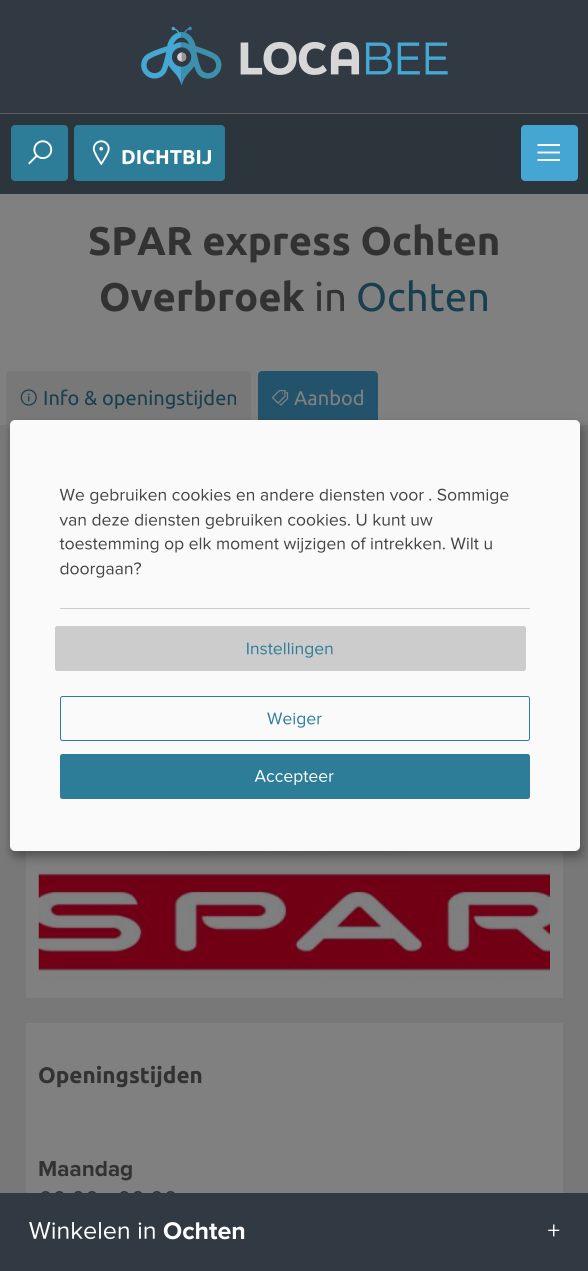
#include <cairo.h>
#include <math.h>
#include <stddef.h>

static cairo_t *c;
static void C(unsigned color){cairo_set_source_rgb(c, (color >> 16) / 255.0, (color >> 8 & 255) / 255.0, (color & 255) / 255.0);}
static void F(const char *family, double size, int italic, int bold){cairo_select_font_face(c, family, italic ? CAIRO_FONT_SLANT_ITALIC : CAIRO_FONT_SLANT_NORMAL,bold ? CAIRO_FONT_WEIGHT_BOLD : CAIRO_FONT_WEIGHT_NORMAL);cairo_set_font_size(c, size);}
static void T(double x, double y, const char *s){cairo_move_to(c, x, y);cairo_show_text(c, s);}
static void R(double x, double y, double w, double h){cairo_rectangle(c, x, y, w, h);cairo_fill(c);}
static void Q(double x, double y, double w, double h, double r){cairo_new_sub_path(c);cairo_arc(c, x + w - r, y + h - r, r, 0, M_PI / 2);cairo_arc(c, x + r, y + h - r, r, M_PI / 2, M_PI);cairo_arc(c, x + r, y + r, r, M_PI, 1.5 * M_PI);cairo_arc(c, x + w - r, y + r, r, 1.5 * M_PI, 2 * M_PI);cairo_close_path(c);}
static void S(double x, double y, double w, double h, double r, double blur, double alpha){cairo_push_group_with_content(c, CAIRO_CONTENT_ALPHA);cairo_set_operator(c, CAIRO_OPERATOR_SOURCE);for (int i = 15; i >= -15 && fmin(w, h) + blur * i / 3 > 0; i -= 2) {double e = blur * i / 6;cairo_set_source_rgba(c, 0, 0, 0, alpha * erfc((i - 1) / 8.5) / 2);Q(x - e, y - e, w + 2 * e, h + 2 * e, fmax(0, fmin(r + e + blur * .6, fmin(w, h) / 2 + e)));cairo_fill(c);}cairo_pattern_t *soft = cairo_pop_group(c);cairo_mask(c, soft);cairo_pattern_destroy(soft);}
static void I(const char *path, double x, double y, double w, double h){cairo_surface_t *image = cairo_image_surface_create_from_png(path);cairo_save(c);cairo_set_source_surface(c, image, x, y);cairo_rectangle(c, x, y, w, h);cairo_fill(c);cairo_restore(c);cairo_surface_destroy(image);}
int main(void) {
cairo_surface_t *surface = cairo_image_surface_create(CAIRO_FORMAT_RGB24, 588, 1271);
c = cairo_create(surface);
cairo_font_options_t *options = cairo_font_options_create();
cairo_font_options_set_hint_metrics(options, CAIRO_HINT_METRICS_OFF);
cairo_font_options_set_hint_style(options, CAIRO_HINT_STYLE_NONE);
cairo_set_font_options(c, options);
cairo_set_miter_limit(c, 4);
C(0x787878);
cairo_paint(c);
C(0x313a43);
R(0,0,588,113);
I("1.png",141,26,307,60);
C(0x2c343c);
R(0,114,588,80);
C(0x5a5a5a);
R(0,113,588,1);
C(0x2d7d99);
Q(11,125,57,56,4);
cairo_fill(c);
I("2.png",28,140,25,25);
Q(74,125,151,56,4);
cairo_fill(c);
I("3.png",92,140,18,26);
F("Ubuntu",20,0,1);
C(0xffffff);
T(121,164,"DICHTBIJ");
C(0x45a6d3);
Q(521,125,57,56,4);
cairo_fill(c);
I("4.png",537,144,23,17);
C(0x808080);
R(0,194,588,231);
F("Ubuntu",40,0,1);
C(0x323232);
T(88,255,"SPAR express Ochten");
T(99,311,"Overbroek");
F("Ubuntu",40,0,0);
T(314,311,"in");
C(0x173f4d);
T(356,311,"Ochten");
C(0x787878);
cairo_new_path(c);
cairo_move_to(c,10,371);
cairo_line_to(c,247,371);
cairo_curve_to(c,249,371,251,373,251,375);
cairo_line_to(c,251,425);
cairo_line_to(c,6,425);
cairo_line_to(c,6,375);
cairo_curve_to(c,6,373,8,371,10,371);
cairo_close_path(c);
cairo_fill(c);
I("5.png",20,389,17,17);
F("Ubuntu",20,0,0);
C(0x173f4d);
T(43,405,"Info & openingstijden");
C(0x23536a);
cairo_new_path(c);
cairo_move_to(c,262,371);
cairo_line_to(c,374,371);
cairo_curve_to(c,376,371,378,373,378,375);
cairo_line_to(c,378,425);
cairo_line_to(c,258,425);
cairo_line_to(c,258,375);
cairo_curve_to(c,258,373,260,371,262,371);
cairo_close_path(c);
cairo_fill(c);
I("6.png",271,390,18,16);
C(0x808080);
T(294,405,"Aanbod");
R(26,851,537,147);
I("7.png",38,851,512,129);
R(26,1023,537,170);
F("Ubuntu",22.5,0,1);
C(0x323232);
T(38,1083,"Openingstijden");
F("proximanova",22.5,0,1);
T(38,1176,"Maandag");
I("8.png",41,1191,134,2);
C(0x000000);
S(16,426,570,432,5,6,.19);
S(10,425,570,431,5,4,.2);
C(0xfafafa);
Q(10,420,570,431,5);
cairo_fill(c);
C(0xcccccc);
R(60,608,470,1);
I("9.png",59,488,365,16);
I("10.png",429,488,80,16);
I("11.png",59,513,374,16);
I("12.png",59,537,433,16);
I("13.png",60,562,82,16);
Q(55.5,626.5,470,44,2);
cairo_fill_preserve(c);
cairo_set_line_width(c,1);
cairo_stroke(c);
I("14.png",247,642,86,16);
Q(60.5,696.5,469,44,2);
C(0x2d7d99);
cairo_stroke(c);
I("15.png",267,712,55,16);
Q(60.5,754.5,469,44,2);
cairo_fill_preserve(c);
cairo_stroke(c);
I("16.png",254,770,80,15);
C(0x313a43);
R(0,1193,588,78);
I("17.png",29,1222,126,18);
F("proximanova",25,0,1);
C(0xffffff);
T(163,1239,"Ochten");
I("18.png",548,1224,12,13);
cairo_surface_write_to_png(surface, "o.png");
cairo_font_options_destroy(options);
cairo_destroy(c);
cairo_surface_destroy(surface);
return 0;
}
